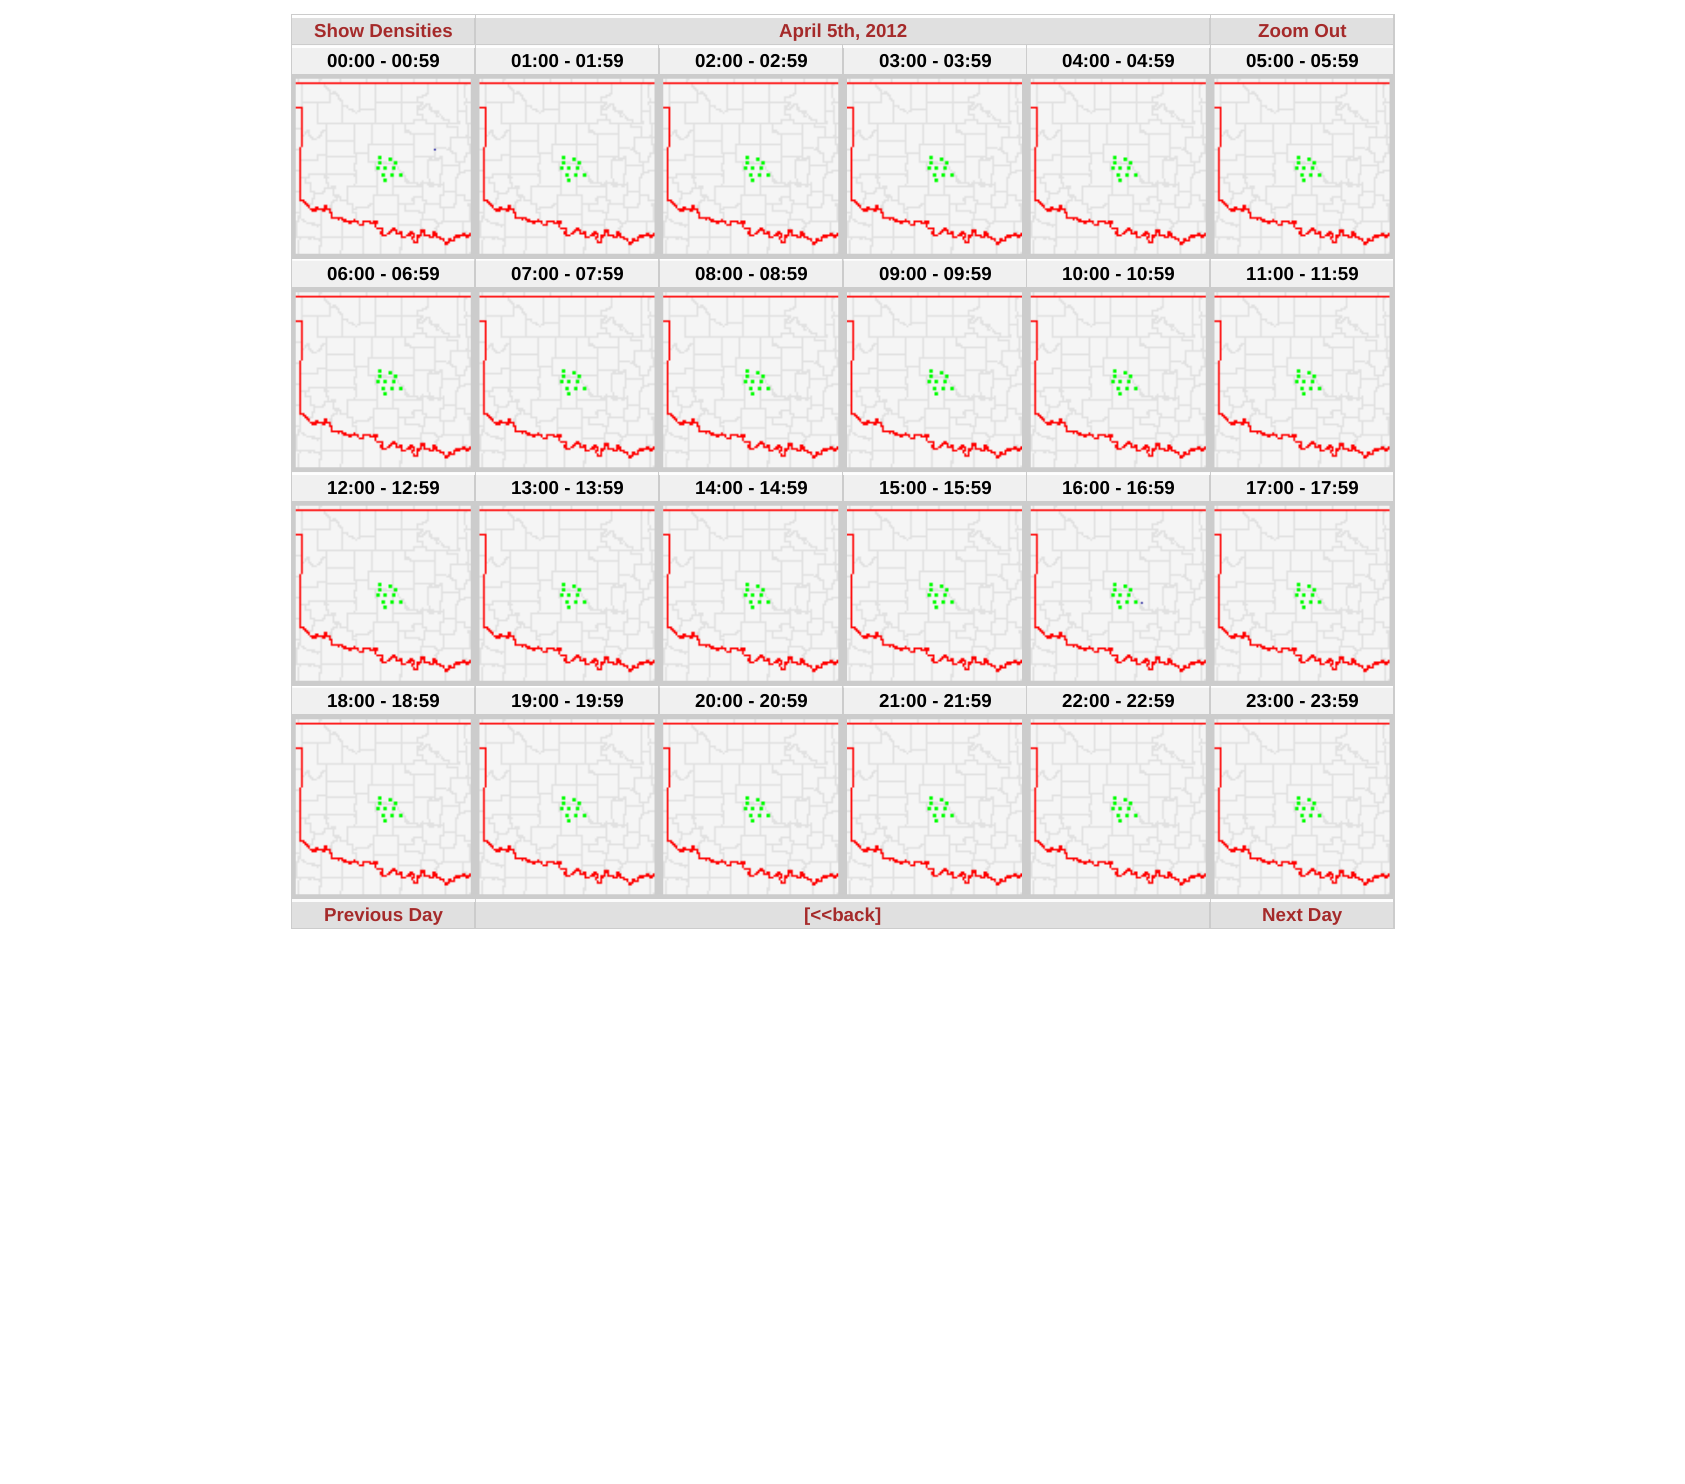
#include <cairo.h>
#include <math.h>
#include <stddef.h>

static cairo_t *c;
static void C(unsigned color){cairo_set_source_rgb(c, (color >> 16) / 255.0, (color >> 8 & 255) / 255.0, (color & 255) / 255.0);}
static void F(const char *family, double size, int italic, int bold){cairo_select_font_face(c, family, italic ? CAIRO_FONT_SLANT_ITALIC : CAIRO_FONT_SLANT_NORMAL,bold ? CAIRO_FONT_WEIGHT_BOLD : CAIRO_FONT_WEIGHT_NORMAL);cairo_set_font_size(c, size);}
static void T(double x, double y, const char *s){cairo_move_to(c, x, y);cairo_show_text(c, s);}
static void R(double x, double y, double w, double h){cairo_rectangle(c, x, y, w, h);cairo_fill(c);}
static void I(const char *path, double x, double y, double w, double h){cairo_surface_t *image = cairo_image_surface_create_from_png(path);cairo_save(c);cairo_set_source_surface(c, image, x, y);cairo_rectangle(c, x, y, w, h);cairo_fill(c);cairo_restore(c);cairo_surface_destroy(image);}
int main(void) {
cairo_surface_t *surface = cairo_image_surface_create(CAIRO_FORMAT_RGB24, 1685, 1484);
c = cairo_create(surface);
cairo_font_options_t *options = cairo_font_options_create();
cairo_font_options_set_hint_metrics(options, CAIRO_HINT_METRICS_OFF);
cairo_font_options_set_hint_style(options, CAIRO_HINT_STYLE_NONE);
cairo_set_font_options(c, options);
cairo_set_miter_limit(c, 4);
C(0xffffff);
cairo_paint(c);
C(0xcccccc);
R(291,14,1104,915);
C(0xfbfbfb);
R(1211,899,182,1);
R(476,899,734,3);
R(292,899,183,3);
R(1211,472,182,1);
R(1027,472,183,3);
R(843,472,183,3);
R(659,472,183,3);
R(476,472,182,1);
R(292,472,183,3);
R(1211,45,182,1);
R(1027,45,183,3);
R(843,45,183,3);
R(659,45,183,3);
R(476,45,182,1);
R(292,45,183,3);
C(0xe0e0e0);
R(292,18,182,26);
C(0xffffff);
R(292,15,183,3);
F("Liberation Sans",18.75,0,1);
C(0xa52a2a);
T(314,37,"Show Densities");
C(0xe0e0e0);
R(476,18,733,26);
C(0xffffff);
R(476,15,734,3);
C(0xa52a2a);
T(779,37,"April 5th, 2012");
C(0xe0e0e0);
R(1211,18,182,26);
C(0xffffff);
R(1211,15,182,3);
C(0xa52a2a);
T(1258,37,"Zoom Out");
C(0xf0f0f0);
R(292,48,182,26);
C(0xfefefe);
R(292,46,182,2);
C(0x000000);
T(327,67,"00:00 - 00:59");
C(0xf0f0f0);
R(476,48,182,26);
C(0xfefefe);
R(476,46,182,2);
C(0x000000);
T(511,67,"01:00 - 01:59");
C(0xf0f0f0);
R(660,48,182,26);
C(0xfefefe);
R(660,46,182,2);
C(0x000000);
T(695,67,"02:00 - 02:59");
C(0xf0f0f0);
R(844,48,182,26);
C(0xfefefe);
R(844,46,182,2);
C(0x000000);
T(879,67,"03:00 - 03:59");
C(0xf0f0f0);
R(1027,48,182,26);
C(0xfefefe);
R(1027,46,182,2);
C(0x000000);
T(1062,67,"04:00 - 04:59");
C(0xf0f0f0);
R(1211,48,182,26);
C(0xfefefe);
R(1211,46,182,2);
C(0x000000);
T(1246,67,"05:00 - 05:59");
I("1.png",295,78,176,176);
I("2.png",479,78,176,176);
I("3.png",663,78,176,176);
I("4.png",847,78,175,176);
I("5.png",1030,78,176,176);
I("6.png",1214,78,176,176);
C(0xf0f0f0);
R(292,259,182,28);
I("7.png",292,259,183,2);
C(0x000000);
T(327,280,"06:00 - 06:59");
C(0xf0f0f0);
R(476,260,182,27);
I("8.png",476,259,182,2);
C(0x000000);
T(511,280,"07:00 - 07:59");
C(0xf0f0f0);
R(660,259,182,28);
I("9.png",659,259,183,2);
C(0x000000);
T(695,280,"08:00 - 08:59");
C(0xf0f0f0);
R(844,259,182,28);
I("10.png",843,259,183,2);
C(0x000000);
T(879,280,"09:00 - 09:59");
C(0xf0f0f0);
R(1027,259,182,28);
I("7.png",1027,259,183,2);
C(0x000000);
T(1062,280,"10:00 - 10:59");
C(0xf0f0f0);
R(1211,260,182,27);
I("8.png",1211,259,182,2);
C(0x000000);
T(1246,280,"11:00 - 11:59");
I("11.png",295,292,176,176);
I("12.png",479,292,176,176);
I("13.png",663,292,176,176);
I("14.png",847,292,175,176);
I("15.png",1030,292,176,176);
I("16.png",1214,292,176,176);
C(0xf0f0f0);
R(292,475,182,26);
C(0xfefefe);
R(292,473,182,2);
C(0x000000);
T(327,494,"12:00 - 12:59");
C(0xf0f0f0);
R(476,475,182,26);
C(0xfefefe);
R(476,473,182,2);
C(0x000000);
T(511,494,"13:00 - 13:59");
C(0xf0f0f0);
R(660,475,182,26);
C(0xfefefe);
R(660,473,182,2);
C(0x000000);
T(695,494,"14:00 - 14:59");
C(0xf0f0f0);
R(844,475,182,26);
C(0xfefefe);
R(844,473,182,2);
C(0x000000);
T(879,494,"15:00 - 15:59");
C(0xf0f0f0);
R(1027,475,182,26);
C(0xfefefe);
R(1027,473,182,2);
C(0x000000);
T(1062,494,"16:00 - 16:59");
C(0xf0f0f0);
R(1211,475,182,26);
C(0xfefefe);
R(1211,473,182,2);
C(0x000000);
T(1246,494,"17:00 - 17:59");
I("17.png",295,505,176,176);
I("18.png",479,505,176,176);
I("19.png",663,505,176,176);
I("20.png",847,505,175,176);
I("21.png",1030,505,176,176);
I("22.png",1214,505,176,176);
C(0xf0f0f0);
R(292,686,182,28);
I("7.png",292,686,183,2);
C(0x000000);
T(327,707,"18:00 - 18:59");
C(0xf0f0f0);
R(476,687,182,27);
I("8.png",476,686,182,2);
C(0x000000);
T(511,707,"19:00 - 19:59");
C(0xf0f0f0);
R(660,686,182,28);
I("9.png",659,686,183,2);
C(0x000000);
T(695,707,"20:00 - 20:59");
C(0xf0f0f0);
R(844,686,182,28);
I("10.png",843,686,183,2);
C(0x000000);
T(879,707,"21:00 - 21:59");
C(0xf0f0f0);
R(1027,686,182,28);
I("7.png",1027,686,183,2);
C(0x000000);
T(1062,707,"22:00 - 22:59");
C(0xf0f0f0);
R(1211,687,182,27);
I("8.png",1211,686,182,2);
C(0x000000);
T(1246,707,"23:00 - 23:59");
I("11.png",295,719,176,176);
I("12.png",479,719,176,176);
I("13.png",663,719,176,176);
I("14.png",847,719,175,176);
I("15.png",1030,719,176,176);
I("16.png",1214,719,176,176);
C(0xe0e0e0);
R(292,902,182,26);
C(0xa52a2a);
T(324,921,"Previous Day");
C(0xe0e0e0);
R(476,902,733,26);
C(0xa52a2a);
T(804,921,"[<<back]");
C(0xe0e0e0);
R(1211,902,182,26);
C(0xfdfdfd);
R(1211,900,182,2);
C(0xa52a2a);
T(1262,921,"Next Day");
cairo_surface_write_to_png(surface, "o.png");
cairo_font_options_destroy(options);
cairo_destroy(c);
cairo_surface_destroy(surface);
return 0;
}
